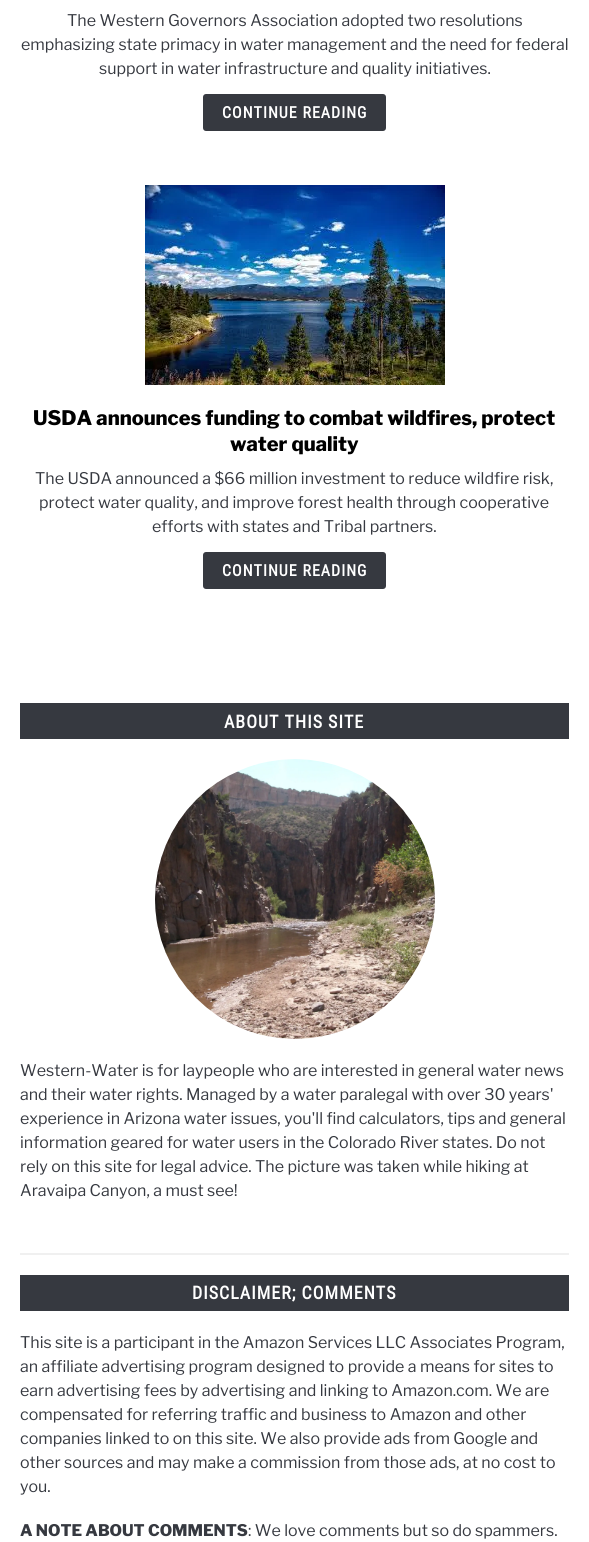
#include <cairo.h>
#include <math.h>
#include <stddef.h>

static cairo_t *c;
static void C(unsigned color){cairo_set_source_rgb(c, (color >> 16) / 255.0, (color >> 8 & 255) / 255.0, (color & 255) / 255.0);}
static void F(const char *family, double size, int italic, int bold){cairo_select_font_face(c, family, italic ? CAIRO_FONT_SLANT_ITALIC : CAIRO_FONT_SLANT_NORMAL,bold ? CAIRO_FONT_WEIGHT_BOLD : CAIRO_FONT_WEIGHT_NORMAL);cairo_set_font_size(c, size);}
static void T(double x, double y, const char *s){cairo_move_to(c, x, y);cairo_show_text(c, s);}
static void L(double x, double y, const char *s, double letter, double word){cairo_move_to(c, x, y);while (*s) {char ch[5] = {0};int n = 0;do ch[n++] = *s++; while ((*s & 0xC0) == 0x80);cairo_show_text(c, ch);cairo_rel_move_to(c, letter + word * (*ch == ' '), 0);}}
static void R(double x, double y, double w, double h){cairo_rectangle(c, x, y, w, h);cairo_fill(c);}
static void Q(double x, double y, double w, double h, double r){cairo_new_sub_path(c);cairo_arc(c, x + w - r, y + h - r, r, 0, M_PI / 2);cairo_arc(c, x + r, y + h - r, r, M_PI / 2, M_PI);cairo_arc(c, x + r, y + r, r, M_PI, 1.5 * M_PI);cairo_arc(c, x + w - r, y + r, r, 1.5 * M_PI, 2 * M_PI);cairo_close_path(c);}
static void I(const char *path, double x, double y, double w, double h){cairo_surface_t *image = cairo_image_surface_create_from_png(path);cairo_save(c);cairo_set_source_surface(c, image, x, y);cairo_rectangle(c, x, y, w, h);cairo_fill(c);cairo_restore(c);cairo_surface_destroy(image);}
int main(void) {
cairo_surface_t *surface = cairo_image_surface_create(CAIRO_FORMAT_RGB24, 589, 1542);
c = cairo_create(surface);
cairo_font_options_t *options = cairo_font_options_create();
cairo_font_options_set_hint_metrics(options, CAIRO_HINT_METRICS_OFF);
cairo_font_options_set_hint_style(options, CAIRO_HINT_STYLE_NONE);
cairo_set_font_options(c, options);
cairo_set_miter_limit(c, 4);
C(0xffffff);
cairo_paint(c);
F("Libre Franklin",16,0,0);
C(0x363940);
T(67,26,"The Western Governors Association adopted two resolutions");
T(21,50,"emphasizing state primacy in water management and the need for federal");
T(99,74,"support in water infrastructure and quality initiatives.");
Q(203,94,183,37,3);
cairo_fill(c);
F("Roboto Condensed",16,0,1);
C(0xffffff);
L(222,118,"CONTINUE READING",1,0);
I("1.png",145,185,300,200);
F("Libre Franklin ExtraBold",20,0,0);
C(0x000000);
T(33,425,"USDA announces funding to combat wildfires, protect");
T(230,451,"water quality");
F("Libre Franklin",16,0,0);
C(0x363940);
T(35,484,"The USDA announced a $66 million investment to reduce wildfire risk,");
T(39,508,"protect water quality, and improve forest health through cooperative");
T(152,532,"efforts with states and Tribal partners.");
Q(203,552,183,37,3);
cairo_fill(c);
F("Roboto Condensed",16,0,1);
C(0xffffff);
L(222,576,"CONTINUE READING",1,0);
C(0x363940);
R(20,703,549,36);
F("Roboto Condensed",18,0,1);
C(0xffffff);
L(224,728,"ABOUT THIS SITE",1,0);
I("2.png",155,759,280,280);
F("Libre Franklin",16,0,0);
C(0x363940);
T(20,1076,"Western-Water is for laypeople who are interested in general water news");
T(20,1100,"and their water rights. Managed by a water paralegal with over 30 years'");
T(20,1124,"experience in Arizona water issues, you'll find calculators, tips and general");
T(20,1148,"information geared for water users in the Colorado River states. Do not");
T(20,1172,"rely on this site for legal advice. The picture was taken while hiking at");
T(20,1196,"Aravaipa Canyon, a must see!");
C(0xf0f0f0);
R(20,1253,549,2);
C(0x363940);
R(20,1275,549,36);
F("Roboto Condensed",18,0,1);
C(0xffffff);
L(192,1299,"DISCLAIMER; COMMENTS",1,0);
F("Libre Franklin",16,0,0);
C(0x363940);
T(20,1348,"This site is a participant in the Amazon Services LLC Associates Program,");
T(20,1372,"an affiliate advertising program designed to provide a means for sites to");
T(20,1396,"earn advertising fees by advertising and linking to Amazon.com. We are");
T(20,1420,"compensated for referring traffic and business to Amazon and other");
T(20,1444,"companies linked to on this site. We also provide ads from Google and");
T(20,1468,"other sources and may make a commission from those ads, at no cost to");
T(20,1492,"you.");
F("Libre Franklin ExtraBold",16,0,0);
T(20,1536,"A NOTE ABOUT COMMENTS");
F("Libre Franklin",16,0,0);
T(248,1536,": We love comments but so do spammers.");
cairo_surface_write_to_png(surface, "o.png");
cairo_font_options_destroy(options);
cairo_destroy(c);
cairo_surface_destroy(surface);
return 0;
}
